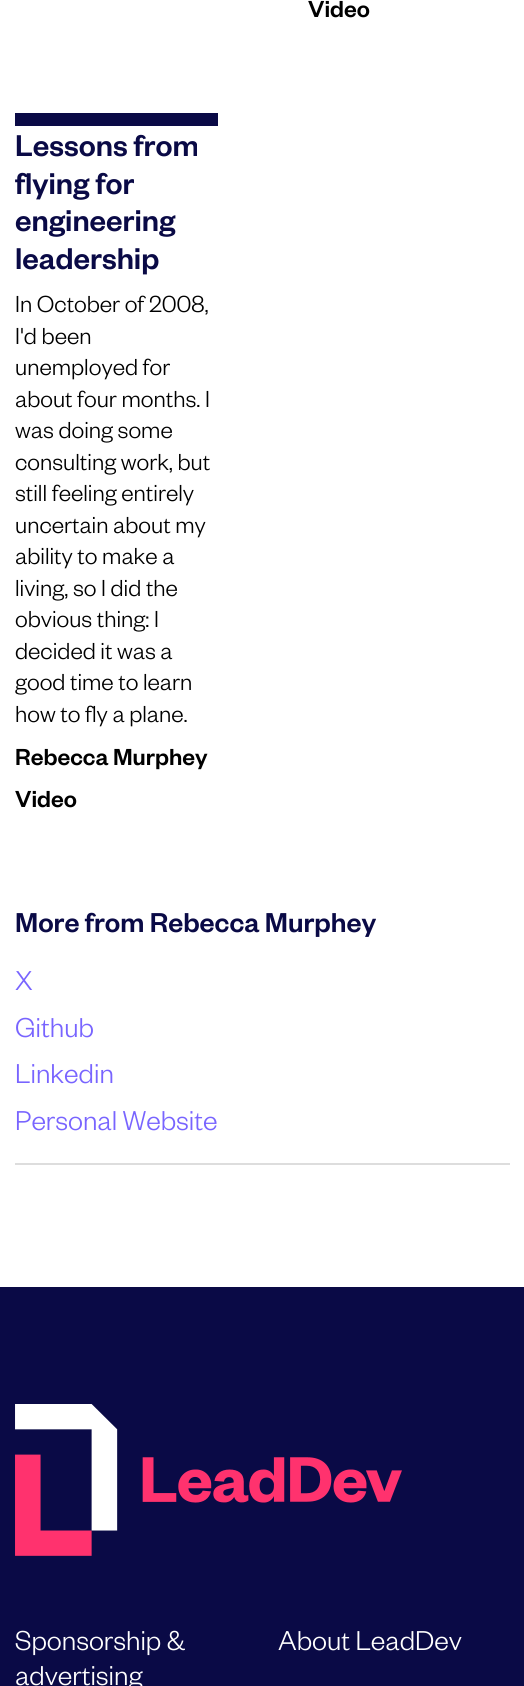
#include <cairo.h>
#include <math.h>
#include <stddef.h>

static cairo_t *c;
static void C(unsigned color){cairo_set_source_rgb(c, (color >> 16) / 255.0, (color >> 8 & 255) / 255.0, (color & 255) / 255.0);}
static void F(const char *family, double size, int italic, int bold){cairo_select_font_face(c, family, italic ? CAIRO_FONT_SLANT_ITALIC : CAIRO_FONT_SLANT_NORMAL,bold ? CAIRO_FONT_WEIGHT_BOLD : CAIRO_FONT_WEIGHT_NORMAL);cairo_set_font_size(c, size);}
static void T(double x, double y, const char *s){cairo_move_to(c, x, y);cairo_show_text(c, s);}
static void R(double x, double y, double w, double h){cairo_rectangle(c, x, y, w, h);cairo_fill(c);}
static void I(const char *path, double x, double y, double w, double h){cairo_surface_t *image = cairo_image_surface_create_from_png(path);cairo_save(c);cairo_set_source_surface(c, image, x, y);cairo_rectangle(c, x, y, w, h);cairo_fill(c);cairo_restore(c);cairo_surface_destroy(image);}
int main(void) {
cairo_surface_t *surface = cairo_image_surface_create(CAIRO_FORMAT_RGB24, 524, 1686);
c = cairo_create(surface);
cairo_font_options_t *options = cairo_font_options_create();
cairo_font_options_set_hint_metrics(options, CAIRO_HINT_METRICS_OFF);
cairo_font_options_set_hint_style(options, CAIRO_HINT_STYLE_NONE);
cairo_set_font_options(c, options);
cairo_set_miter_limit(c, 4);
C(0xffffff);
cairo_paint(c);
C(0xdddddd);
R(15,1163,495,2);
F("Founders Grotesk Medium",25.5,0,0);
C(0x000000);
T(308,17,"Video");
C(0x0a0a46);
R(15,113,203,13);
F("Founders Grotesk Medium",33,0,0);
T(15,156,"Lessons from");
T(15,194,"flying for");
T(15,231,"engineering");
T(15,269,"leadership");
F("Founders Grotesk Light",25.5,0,0);
C(0x000000);
T(15,312,"In October of 2008,");
T(15,344,"I'd been");
T(15,375,"unemployed for");
T(15,407,"about four months. I");
T(15,438,"was doing some");
T(15,470,"consulting work, but");
T(15,501,"still feeling entirely");
T(15,533,"uncertain about my");
T(15,564,"ability to make a");
T(15,596,"living, so I did the");
T(15,627,"obvious thing: I");
T(15,659,"decided it was a");
T(15,690,"good time to learn");
T(15,722,"how to fly a plane.");
F("Founders Grotesk Medium",25.5,0,0);
T(15,765,"Rebecca Murphey");
T(15,807,"Video");
F("Founders Grotesk Medium",30,0,0);
C(0x0a0a46);
T(15,932,"More from Rebecca Murphey");
F("Founders Grotesk Light",30,0,0);
C(0x7864ff);
T(15,990,"X");
T(15,1037,"Github");
T(15,1083,"Linkedin");
T(15,1130,"Personal Website");
C(0x0a0a46);
R(0,1287,524,399);
I("1.png",15,1404,387,152);
C(0xffffff);
T(15,1650,"Sponsorship &");
T(15,1685,"advertising");
T(278,1650,"About LeadDev");
cairo_surface_write_to_png(surface, "o.png");
cairo_font_options_destroy(options);
cairo_destroy(c);
cairo_surface_destroy(surface);
return 0;
}
